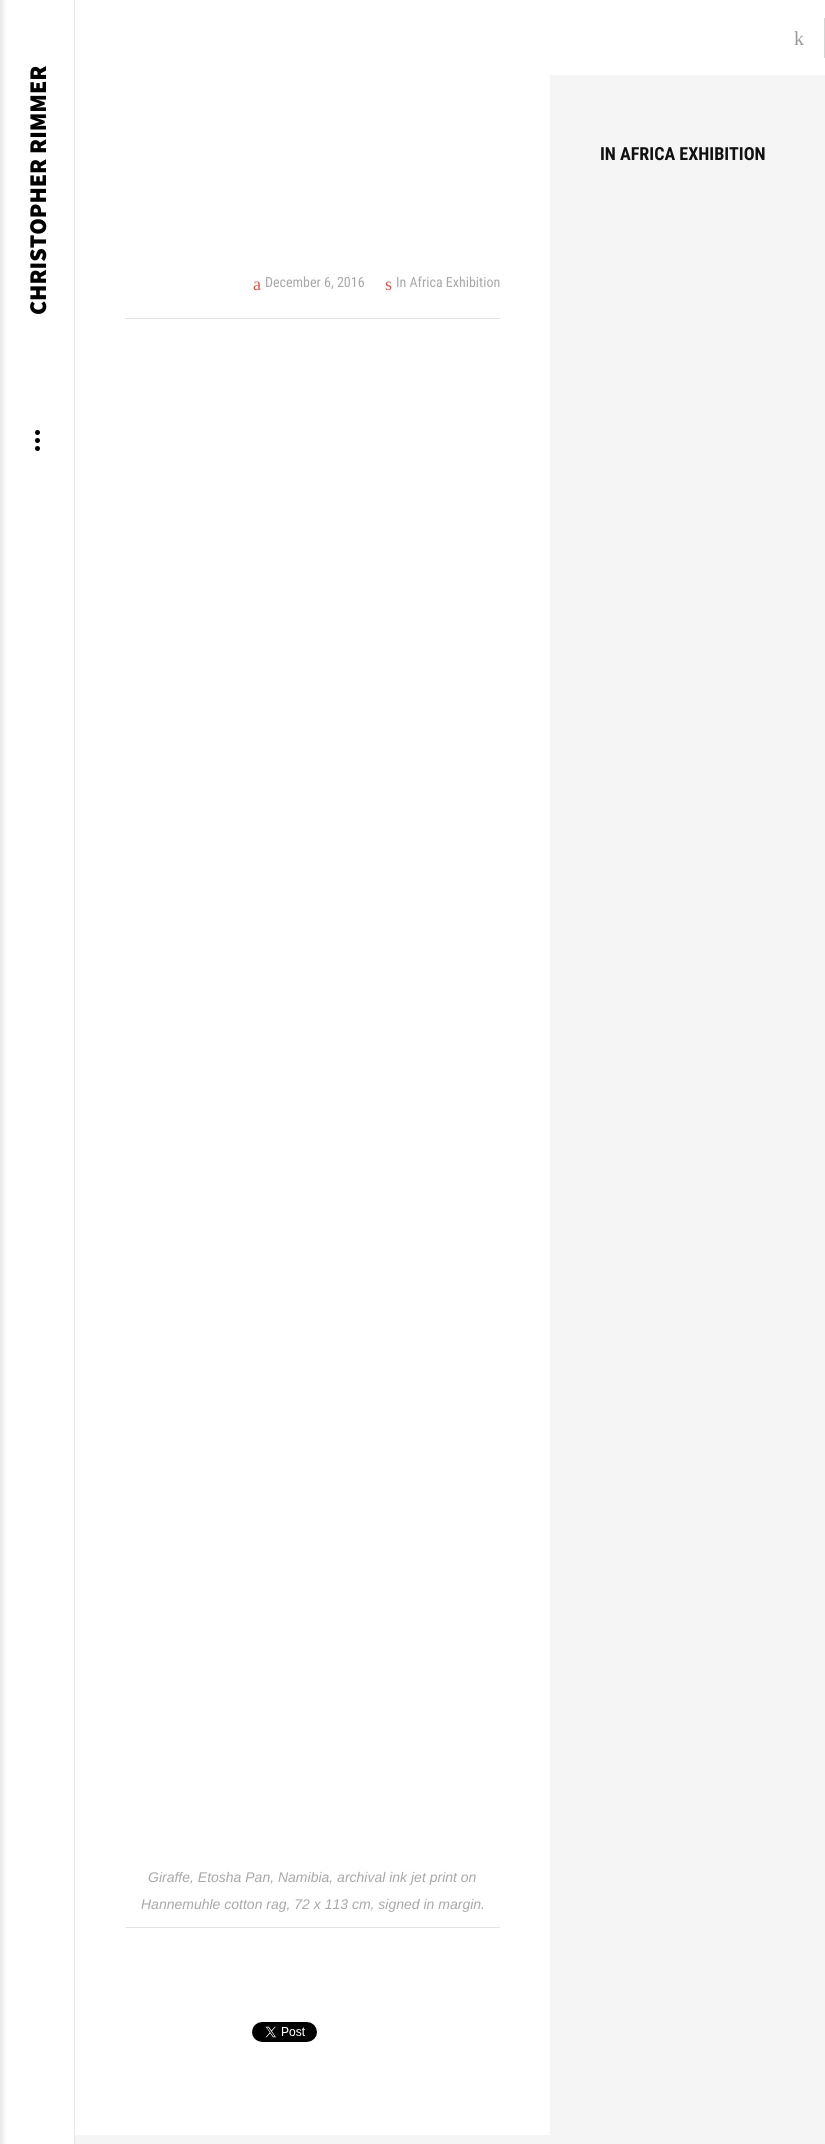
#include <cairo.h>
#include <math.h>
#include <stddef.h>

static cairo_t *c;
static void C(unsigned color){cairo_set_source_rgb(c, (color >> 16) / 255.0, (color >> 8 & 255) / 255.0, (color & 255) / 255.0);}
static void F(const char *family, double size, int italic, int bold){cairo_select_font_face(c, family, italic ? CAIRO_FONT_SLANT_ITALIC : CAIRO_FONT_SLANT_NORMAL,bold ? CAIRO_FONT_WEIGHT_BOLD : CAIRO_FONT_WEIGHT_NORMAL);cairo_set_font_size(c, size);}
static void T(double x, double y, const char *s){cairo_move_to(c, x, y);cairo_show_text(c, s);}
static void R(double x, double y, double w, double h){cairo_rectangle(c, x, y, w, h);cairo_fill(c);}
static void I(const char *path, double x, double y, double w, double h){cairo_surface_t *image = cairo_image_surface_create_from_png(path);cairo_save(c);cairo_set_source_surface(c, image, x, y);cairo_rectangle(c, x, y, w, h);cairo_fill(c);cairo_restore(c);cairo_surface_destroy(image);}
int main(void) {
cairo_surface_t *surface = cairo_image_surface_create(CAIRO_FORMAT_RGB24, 825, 2144);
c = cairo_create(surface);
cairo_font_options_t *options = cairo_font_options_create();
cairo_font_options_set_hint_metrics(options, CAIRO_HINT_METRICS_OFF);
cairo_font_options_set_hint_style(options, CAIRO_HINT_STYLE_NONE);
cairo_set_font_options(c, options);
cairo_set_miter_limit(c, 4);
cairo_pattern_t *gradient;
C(0xf5f5f5);
cairo_paint(c);
C(0xffffff);
R(550,0,275,75);
gradient = cairo_pattern_create_linear(0,1072,74,1072);
cairo_pattern_add_color_stop_rgba(gradient,0,0.906,0.906,0.906,1);
cairo_pattern_add_color_stop_rgba(gradient,.09,1,1,1,1);
cairo_pattern_add_color_stop_rgba(gradient,1,1,1,1,1);
cairo_set_source(c,gradient);
cairo_pattern_destroy(gradient);
R(0,0,74,2144);
C(0xe5e5e5);
R(74,0,1,2144);
F("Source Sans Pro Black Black",24,0,0);
C(0x010101);
cairo_save(c);
cairo_translate(c,46,315);
cairo_rotate(c,-90 * M_PI / 180);
T(0,0,"CHRISTOPHER RIMMER");
cairo_restore(c);
C(0x000000);
cairo_new_path(c);
cairo_arc(c,37.5,432.5,2.5,0,2 * M_PI);
cairo_fill(c);
cairo_arc(c,37.5,440.5,2.5,0,2 * M_PI);
cairo_fill(c);
cairo_arc(c,37.5,448.5,2.5,0,2 * M_PI);
cairo_fill(c);
C(0xd5d5d5);
R(824,18,1,40);
F("Liberation Serif",20,0,0);
C(0x999999);
T(794,45,"k");
F("Roboto Condensed",18,0,1);
C(0x111111);
T(600,160,"IN AFRICA EXHIBITION");
C(0xffffff);
R(75,0,475,2135);
C(0xe5e5e5);
R(125,318,375,1);
F("Liberation Serif",18,0,0);
C(0xe45245);
T(253,290,"a");
F("Roboto Condensed",14,0,0);
C(0xa8a8a8);
T(265,287,"December 6, 2016");
F("Liberation Serif",18,0,0);
C(0xe45245);
T(385,290,"s");
F("Roboto Condensed",14,0,0);
C(0xa8a8a8);
T(396,287,"In Africa Exhibition");
F("Liberation Sans",14,1,0);
T(148,1882,"Giraffe, Etosha Pan, Namibia, archival ink jet print on");
T(141,1909,"Hannemuhle cotton rag, 72 x 113 cm, signed in margin.");
C(0xe5e5e5);
R(125,1927,375,1);
I("1.png",252,2022,65,20);
cairo_surface_write_to_png(surface, "o.png");
cairo_font_options_destroy(options);
cairo_destroy(c);
cairo_surface_destroy(surface);
return 0;
}
